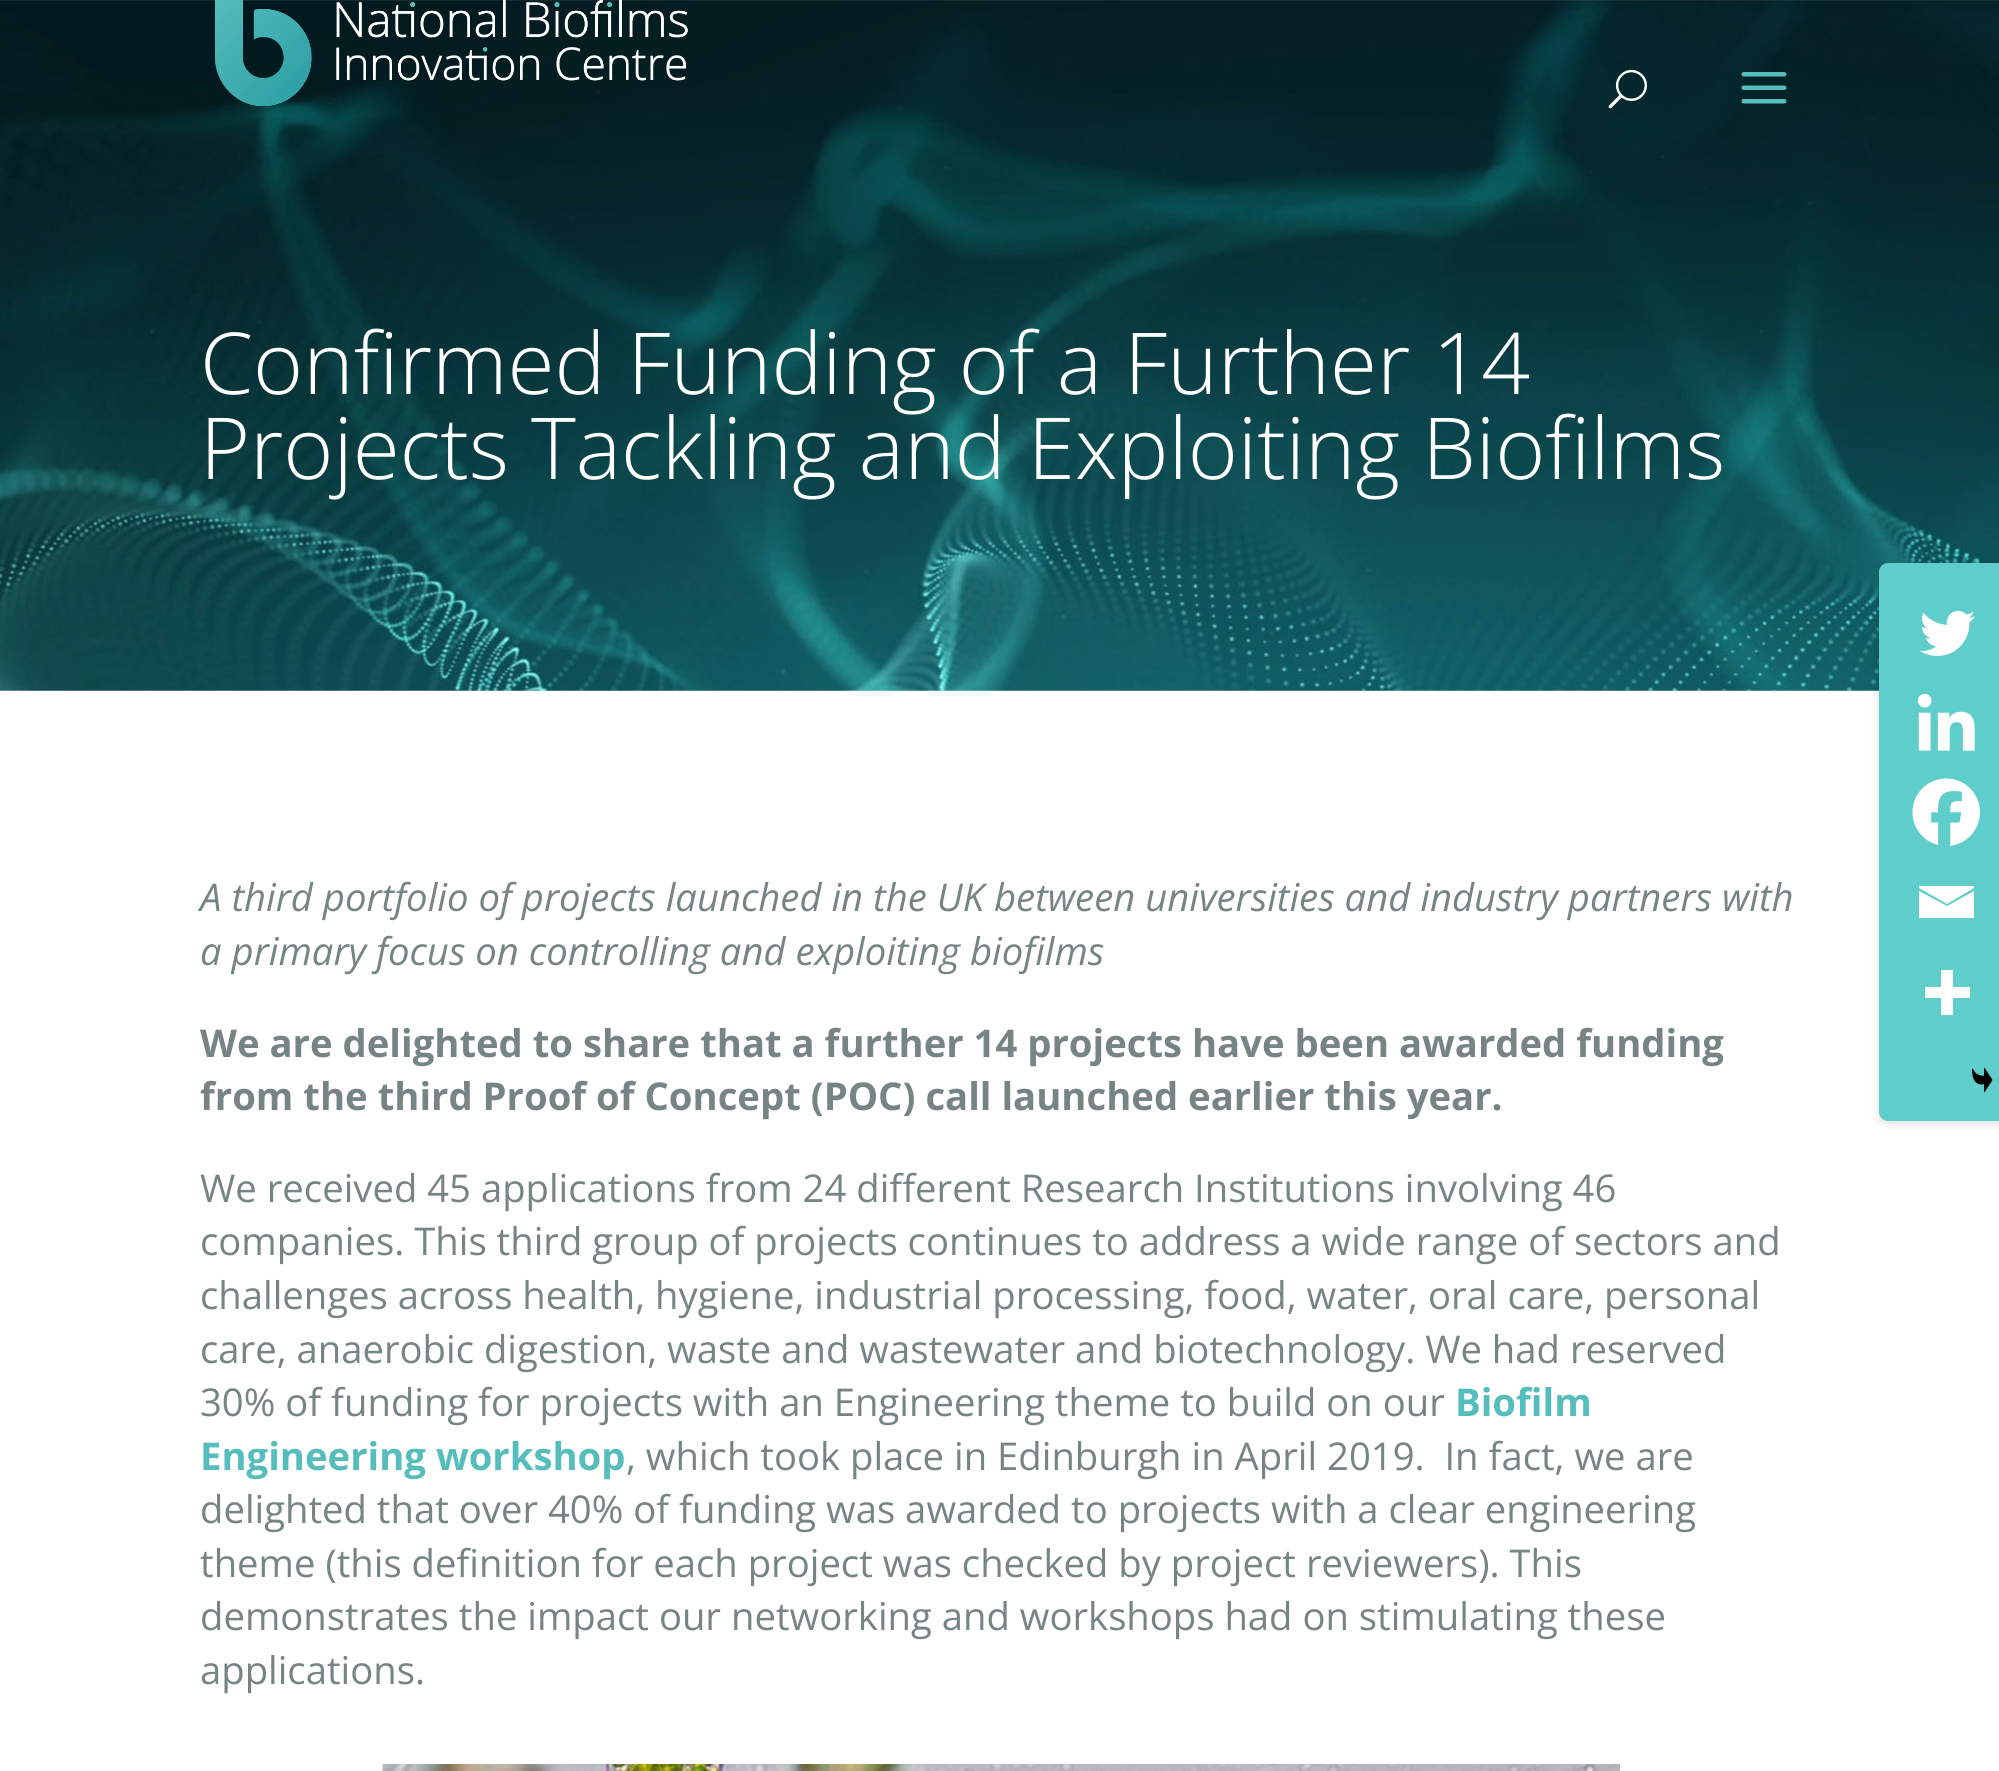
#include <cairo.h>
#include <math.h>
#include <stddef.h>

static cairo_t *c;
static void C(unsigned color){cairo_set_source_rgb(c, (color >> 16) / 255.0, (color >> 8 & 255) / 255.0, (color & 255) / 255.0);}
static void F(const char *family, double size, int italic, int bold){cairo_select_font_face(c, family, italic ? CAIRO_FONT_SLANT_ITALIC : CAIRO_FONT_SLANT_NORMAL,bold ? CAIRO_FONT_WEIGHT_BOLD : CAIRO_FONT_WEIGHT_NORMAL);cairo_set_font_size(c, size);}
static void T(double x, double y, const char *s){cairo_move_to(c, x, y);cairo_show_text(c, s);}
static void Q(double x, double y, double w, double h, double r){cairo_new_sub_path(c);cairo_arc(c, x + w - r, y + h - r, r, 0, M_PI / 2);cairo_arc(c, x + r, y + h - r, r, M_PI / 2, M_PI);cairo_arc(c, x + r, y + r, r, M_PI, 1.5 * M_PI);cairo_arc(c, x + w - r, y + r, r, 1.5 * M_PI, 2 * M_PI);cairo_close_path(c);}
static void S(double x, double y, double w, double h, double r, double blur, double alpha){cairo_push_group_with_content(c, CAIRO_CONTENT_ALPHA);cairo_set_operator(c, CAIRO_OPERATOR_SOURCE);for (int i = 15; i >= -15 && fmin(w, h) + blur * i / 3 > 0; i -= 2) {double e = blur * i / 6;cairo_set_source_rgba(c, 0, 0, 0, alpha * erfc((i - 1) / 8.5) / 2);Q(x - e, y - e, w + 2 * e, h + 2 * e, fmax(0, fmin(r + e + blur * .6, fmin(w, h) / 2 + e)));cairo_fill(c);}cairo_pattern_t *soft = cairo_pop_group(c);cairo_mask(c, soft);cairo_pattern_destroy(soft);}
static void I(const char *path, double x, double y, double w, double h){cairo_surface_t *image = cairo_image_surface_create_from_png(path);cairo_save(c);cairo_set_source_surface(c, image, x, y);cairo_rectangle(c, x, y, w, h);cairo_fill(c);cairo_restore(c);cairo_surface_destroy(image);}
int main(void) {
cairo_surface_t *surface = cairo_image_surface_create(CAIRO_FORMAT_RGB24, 1999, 1771);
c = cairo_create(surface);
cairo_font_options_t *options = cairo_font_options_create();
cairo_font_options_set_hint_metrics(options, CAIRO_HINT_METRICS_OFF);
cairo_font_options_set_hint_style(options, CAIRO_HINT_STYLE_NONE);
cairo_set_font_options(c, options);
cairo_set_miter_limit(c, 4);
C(0xffffff);
cairo_paint(c);
I("4.png",0,0,1999,691);
I("1.png",215,0,473,106);
I("2.png",1608,69,39,40);
I("3.png",1741,72,46,32);
F("Open Sans Light",85.5,0,0);
C(0xffffff);
T(200,394,"Confirmed Funding of a Further 14");
T(200,479,"Projects Tackling and Exploiting Biofilms");
F("Open Sans",38.25,1,0);
C(0x778483);
T(200,911,"A third portfolio of projects launched in the UK between universities and industry partners with");
T(200,965,"a primary focus on controlling and exploiting biofilms");
F("Open Sans",38.25,0,1);
T(200,1057,"We are delighted to share that a further 14 projects have been awarded funding");
T(200,1110,"from the third Proof of Concept (POC) call launched earlier this year.");
F("Open Sans",38.25,0,0);
T(200,1202,"We received 45 applications from 24 different Research Institutions involving 46");
T(200,1255,"companies. This third group of projects continues to address a wide range of sectors and");
T(200,1309,"challenges across health, hygiene, industrial processing, food, water, oral care, personal");
T(200,1363,"care, anaerobic digestion, waste and wastewater and biotechnology. We had reserved");
T(200,1416,"30% of funding for projects with an Engineering theme to build on our");
F("Open Sans",38.25,0,1);
C(0x55bdbc);
T(1455,1416,"Biofilm");
T(200,1470,"Engineering workshop");
F("Open Sans",38.25,0,0);
C(0x778483);
T(626,1470,", which took place in Edinburgh in April 2019.  In fact, we are");
T(200,1523,"delighted that over 40% of funding was awarded to projects with a clear engineering");
T(200,1577,"theme (this definition for each project was checked by project reviewers). This");
T(200,1630,"demonstrates the impact our networking and workshops had on stimulating these");
T(200,1684,"applications.");
I("5.png",382,1764,1238,7);
C(0x000000);
S(1877,563,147,562,11,4.5,.1);
C(0x5fcecb);
Q(1879,563,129,558,9);
cairo_fill(c);
I("6.png",1920,610,55,46);
I("7.png",1917,693,58,58);
I("8.png",1912,778,68,68);
C(0xffffff);
cairo_new_path(c);
cairo_move_to(c,1917,886);
cairo_line_to(c,1974,886);
cairo_line_to(c,1974,888);
cairo_line_to(c,1947,904);
cairo_line_to(c,1919,888);
cairo_line_to(c,1919,886);
cairo_move_to(c,1919,891);
cairo_line_to(c,1947,906);
cairo_line_to(c,1974,891);
cairo_line_to(c,1974,918);
cairo_line_to(c,1919,918);
cairo_line_to(c,1919,891);
cairo_fill(c);
cairo_set_fill_rule(c,CAIRO_FILL_RULE_EVEN_ODD);
cairo_new_path(c);
cairo_move_to(c,1953,987);
cairo_line_to(c,1953,970);
cairo_line_to(c,1941,970);
cairo_line_to(c,1941,987);
cairo_line_to(c,1925,987);
cairo_line_to(c,1925,998);
cairo_line_to(c,1941,998);
cairo_line_to(c,1941,1015);
cairo_line_to(c,1953,1015);
cairo_line_to(c,1953,998);
cairo_line_to(c,1970,998);
cairo_line_to(c,1970,987);
cairo_close_path(c);
cairo_fill(c);
I("9.png",1972,1067,21,26);
cairo_surface_write_to_png(surface, "o.png");
cairo_font_options_destroy(options);
cairo_destroy(c);
cairo_surface_destroy(surface);
return 0;
}
